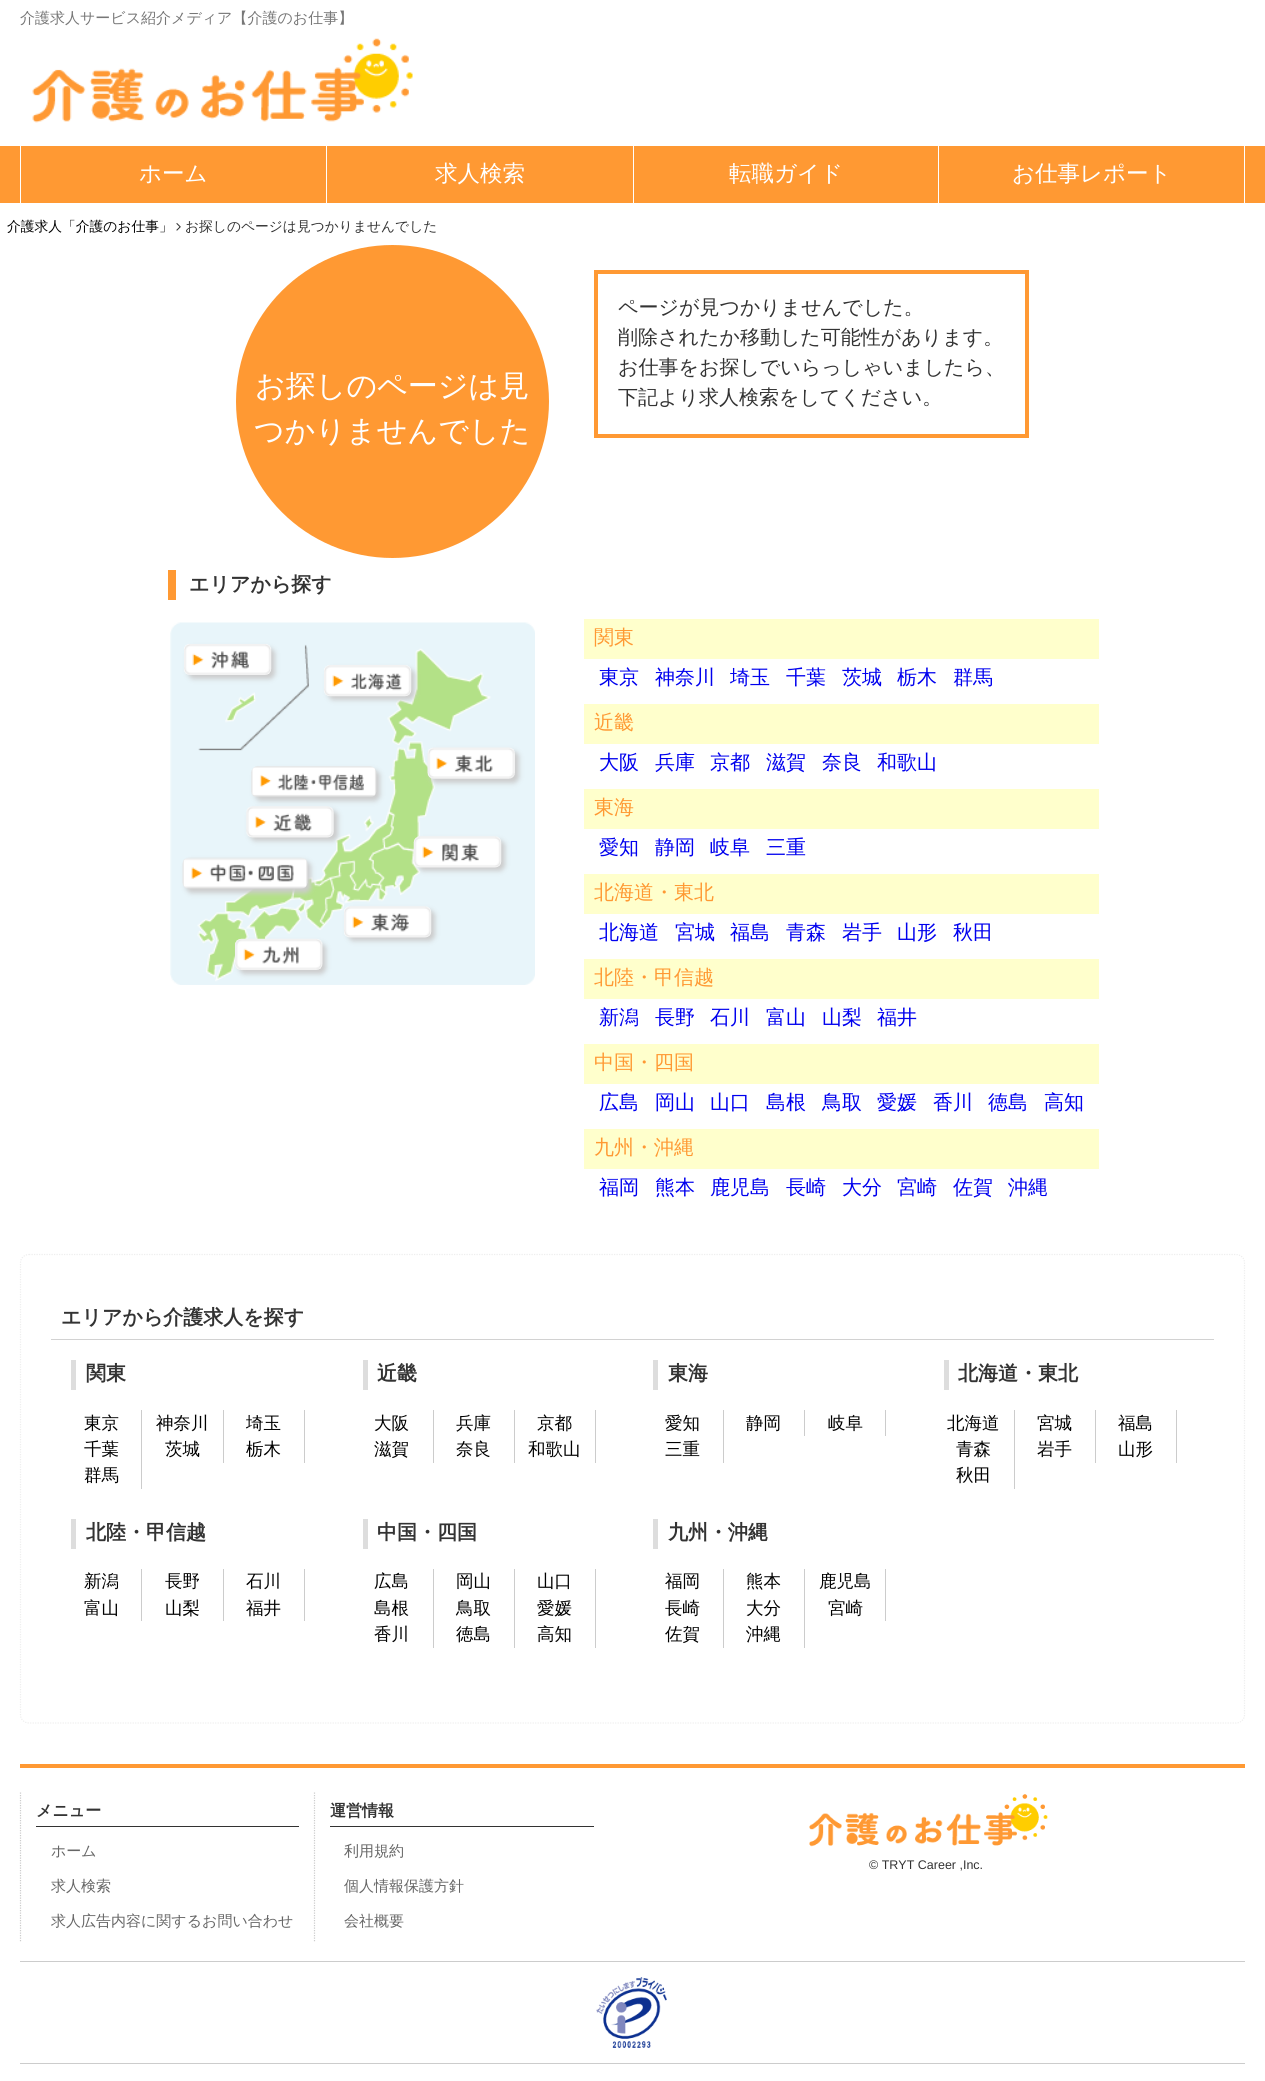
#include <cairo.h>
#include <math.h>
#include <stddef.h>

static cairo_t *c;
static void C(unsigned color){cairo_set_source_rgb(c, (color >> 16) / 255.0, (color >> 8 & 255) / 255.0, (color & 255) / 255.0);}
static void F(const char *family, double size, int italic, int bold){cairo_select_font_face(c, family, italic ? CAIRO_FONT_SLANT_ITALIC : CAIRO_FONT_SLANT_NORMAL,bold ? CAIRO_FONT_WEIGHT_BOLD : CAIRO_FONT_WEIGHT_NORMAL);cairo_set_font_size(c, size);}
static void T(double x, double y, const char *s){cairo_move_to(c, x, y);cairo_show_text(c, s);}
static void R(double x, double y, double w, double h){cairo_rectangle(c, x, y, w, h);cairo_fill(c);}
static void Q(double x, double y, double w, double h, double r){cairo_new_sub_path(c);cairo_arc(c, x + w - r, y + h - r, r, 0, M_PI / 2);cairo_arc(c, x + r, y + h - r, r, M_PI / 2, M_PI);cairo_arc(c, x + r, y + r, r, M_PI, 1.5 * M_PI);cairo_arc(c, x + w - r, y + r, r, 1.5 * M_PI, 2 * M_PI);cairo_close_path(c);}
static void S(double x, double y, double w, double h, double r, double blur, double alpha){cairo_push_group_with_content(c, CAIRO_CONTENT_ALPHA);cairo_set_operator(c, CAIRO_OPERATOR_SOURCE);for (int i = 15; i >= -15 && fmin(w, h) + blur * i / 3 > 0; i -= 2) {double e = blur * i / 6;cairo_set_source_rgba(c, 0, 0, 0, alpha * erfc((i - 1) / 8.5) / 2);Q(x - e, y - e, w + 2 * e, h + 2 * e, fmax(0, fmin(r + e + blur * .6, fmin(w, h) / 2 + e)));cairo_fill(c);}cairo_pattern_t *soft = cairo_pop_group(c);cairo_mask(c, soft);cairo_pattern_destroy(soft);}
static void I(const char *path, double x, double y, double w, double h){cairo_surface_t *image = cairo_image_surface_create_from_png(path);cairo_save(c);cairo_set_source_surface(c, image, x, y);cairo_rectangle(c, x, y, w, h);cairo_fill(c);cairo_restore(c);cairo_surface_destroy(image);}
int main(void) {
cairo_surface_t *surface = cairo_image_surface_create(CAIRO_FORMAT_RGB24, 1265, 2081);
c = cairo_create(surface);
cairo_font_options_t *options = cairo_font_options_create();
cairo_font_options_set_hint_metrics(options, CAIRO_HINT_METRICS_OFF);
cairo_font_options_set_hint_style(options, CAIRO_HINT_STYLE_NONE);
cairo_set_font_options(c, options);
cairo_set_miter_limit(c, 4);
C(0xffffff);
cairo_paint(c);
F("WenQuanYi Zen Hei Medium",15,0,0);
C(0x777777);
T(20,23,"介護求人サービス紹介メディア【介護のお仕事】");
I("1.png",32,38,381,85);
C(0xff9933);
R(0,146,1265,57);
C(0xffffff);
R(20,146,1,57);
F("WenQuanYi Zen Hei Medium",22.5,0,0);
T(139,181,"ホーム");
R(326,146,1,57);
T(435,181,"求人検索");
R(633,146,1,57);
T(729,181,"転職ガイド");
R(1244,146,1,57);
R(938,146,1,57);
T(1012,181,"お仕事レポート");
F("WenQuanYi Zen Hei Medium",13.75,0,0);
C(0x000000);
T(7,231,"介護求人「介護のお仕事」");
I("2.png",176,223,5,8);
C(0x333333);
T(185,231,"お探しのページは見つかりませんでした");
C(0xff9933);
cairo_new_path(c);
cairo_arc(c,392.5,401.5,156.5,0,2 * M_PI);
cairo_fill(c);
F("WenQuanYi Zen Hei Medium",30,0,0);
C(0xffffff);
T(255,396,"お探しのページは見");
T(254,441,"つかりませんでした");
cairo_rectangle(c,596,272,431,164);
C(0xff9933);
cairo_set_line_width(c,4);
cairo_stroke(c);
F("WenQuanYi Zen Hei Medium",20,0,0);
C(0x333333);
T(618,314,"ページが見つかりませんでした。");
T(618,344,"削除されたか移動した可能性があります。");
T(618,374,"お仕事をお探しでいらっしゃいましたら、");
T(618,404,"下記より求人検索をしてください。");
C(0xff9933);
R(168,570,8,30);
F("WenQuanYi Zen Hei",20,0,1);
C(0x333333);
T(189,591,"エリアから探す");
I("3.png",170,622,365,363);
C(0xcccccc);
S(188,648,87,31,6,2.5,1);
I("4.png",184,644,88,31);
S(328,669,87,31,6,2.5,1);
I("5.png",324,665,88,32);
S(255,770,125,31,6,2.5,1);
I("6.png",251,766,126,31);
S(431,751,88,32,6,2.5,1);
I("7.png",427,747,88,32);
S(250,810,88,31,6,2.5,1);
I("8.png",246,806,88,32);
S(186,861,125,32,6,2.5,1);
I("9.png",182,857,126,32);
S(418,840,87,31,6,2.5,1);
I("10.png",413,836,89,32);
S(348,910,87,31,6,2.5,1);
I("11.png",344,906,88,32);
S(239,943,87,31,6,2.5,1);
I("12.png",235,938,88,32);
C(0xffffcc);
R(584,619,515,40);
F("WenQuanYi Zen Hei Medium",20,0,0);
C(0xff9933);
T(594,644,"関東");
C(0x0000ee);
T(599,684,"東京");
T(655,684,"神奈川");
T(730,684,"埼玉");
T(786,684,"千葉");
T(842,684,"茨城");
T(897,684,"栃木");
T(953,684,"群馬");
C(0xffffcc);
R(584,704,515,40);
C(0xff9933);
T(594,729,"近畿");
C(0x0000ee);
T(599,769,"大阪");
T(655,769,"兵庫");
T(710,769,"京都");
T(766,769,"滋賀");
T(822,769,"奈良");
T(877,769,"和歌山");
C(0xffffcc);
R(584,789,515,40);
C(0xff9933);
T(594,814,"東海");
C(0x0000ee);
T(599,854,"愛知");
T(655,854,"静岡");
T(710,854,"岐阜");
T(766,854,"三重");
C(0xffffcc);
R(584,874,515,40);
C(0xff9933);
T(594,899,"北海道・東北");
C(0x0000ee);
T(599,939,"北海道");
T(675,939,"宮城");
T(730,939,"福島");
T(786,939,"青森");
T(842,939,"岩手");
T(897,939,"山形");
T(953,939,"秋田");
C(0xffffcc);
R(584,959,515,40);
C(0xff9933);
T(594,984,"北陸・甲信越");
C(0x0000ee);
T(599,1024,"新潟");
T(655,1024,"長野");
T(710,1024,"石川");
T(766,1024,"富山");
T(822,1024,"山梨");
T(877,1024,"福井");
C(0xffffcc);
R(584,1044,515,40);
C(0xff9933);
T(594,1069,"中国・四国");
C(0x0000ee);
T(599,1109,"広島");
T(655,1109,"岡山");
T(710,1109,"山口");
T(766,1109,"島根");
T(822,1109,"鳥取");
T(877,1109,"愛媛");
T(933,1109,"香川");
T(988,1109,"徳島");
T(1044,1109,"高知");
C(0xffffcc);
R(584,1129,515,40);
C(0xff9933);
T(594,1154,"九州・沖縄");
C(0x0000ee);
T(599,1194,"福岡");
T(655,1194,"熊本");
T(710,1194,"鹿児島");
T(786,1194,"長崎");
T(842,1194,"大分");
T(897,1194,"宮崎");
T(953,1194,"佐賀");
T(1008,1194,"沖縄");
cairo_new_path(c);
cairo_move_to(c,29,1254.5);
cairo_line_to(c,1236,1254.5);
cairo_curve_to(c,1240.5,1254.5,1244.5,1258,1244.5,1262.5);
cairo_line_to(c,1244.5,1715);
cairo_curve_to(c,1244.5,1719.5,1240.5,1723,1236,1723);
cairo_line_to(c,29,1723);
cairo_curve_to(c,24.5,1723,20.5,1719.5,20.5,1715);
cairo_line_to(c,20.5,1262.5);
cairo_curve_to(c,20.5,1258,24.5,1254.5,29,1254.5);
cairo_close_path(c);
C(0xeeeeee);
cairo_set_line_width(c,1.2);
cairo_set_dash(c,(double[]){1.25,1.25},2,0);
cairo_stroke(c);
C(0xd2d2d2);
R(51,1339,1163,1);
F("WenQuanYi Zen Hei",20,0,1);
C(0x333333);
T(61,1324,"エリアから介護求人を探す");
C(0xdddddd);
R(71,1360,5,30);
C(0x333333);
T(86,1380,"関東");
C(0xcccccc);
R(141,1410,1,79);
F("WenQuanYi Zen Hei Medium",17.5,0,0);
C(0x000000);
T(84,1429,"東京");
C(0xcccccc);
R(223,1410,1,53);
C(0x000000);
T(156,1429,"神奈川");
C(0xcccccc);
R(304,1410,1,53);
C(0x000000);
T(246,1429,"埼玉");
T(84,1455,"千葉");
T(165,1455,"茨城");
T(246,1455,"栃木");
T(84,1481,"群馬");
C(0xdddddd);
R(363,1360,5,30);
F("WenQuanYi Zen Hei",20,0,1);
C(0x333333);
T(377,1380,"近畿");
C(0xcccccc);
R(433,1410,1,53);
F("WenQuanYi Zen Hei Medium",17.5,0,0);
C(0x000000);
T(374,1429,"大阪");
C(0xcccccc);
R(514,1410,1,53);
C(0x000000);
T(456,1429,"兵庫");
C(0xcccccc);
R(595,1410,1,53);
C(0x000000);
T(537,1429,"京都");
T(374,1455,"滋賀");
T(456,1455,"奈良");
T(528,1455,"和歌山");
C(0xdddddd);
R(653,1360,5,30);
F("WenQuanYi Zen Hei",20,0,1);
C(0x333333);
T(668,1380,"東海");
C(0xcccccc);
R(723,1410,1,53);
F("WenQuanYi Zen Hei Medium",17.5,0,0);
C(0x000000);
T(665,1429,"愛知");
C(0xcccccc);
R(804,1410,1,26);
C(0x000000);
T(746,1429,"静岡");
C(0xcccccc);
R(885,1410,1,26);
C(0x000000);
T(828,1429,"岐阜");
T(665,1455,"三重");
C(0xdddddd);
R(944,1360,5,30);
F("WenQuanYi Zen Hei",20,0,1);
C(0x333333);
T(958,1380,"北海道・東北");
C(0xcccccc);
R(1014,1410,1,79);
F("WenQuanYi Zen Hei Medium",17.5,0,0);
C(0x000000);
T(947,1429,"北海道");
C(0xcccccc);
R(1095,1410,1,53);
C(0x000000);
T(1037,1429,"宮城");
C(0xcccccc);
R(1176,1410,1,53);
C(0x000000);
T(1118,1429,"福島");
T(956,1455,"青森");
T(1037,1455,"岩手");
T(1118,1455,"山形");
T(956,1481,"秋田");
C(0xdddddd);
R(71,1519,5,30);
F("WenQuanYi Zen Hei",20,0,1);
C(0x333333);
T(86,1539,"北陸・甲信越");
C(0xcccccc);
R(141,1569,1,52);
F("WenQuanYi Zen Hei Medium",17.5,0,0);
C(0x000000);
T(84,1587,"新潟");
C(0xcccccc);
R(223,1569,1,52);
C(0x000000);
T(165,1587,"長野");
C(0xcccccc);
R(304,1569,1,52);
C(0x000000);
T(246,1587,"石川");
T(84,1614,"富山");
T(165,1614,"山梨");
T(246,1614,"福井");
C(0xdddddd);
R(363,1519,5,30);
F("WenQuanYi Zen Hei",20,0,1);
C(0x333333);
T(377,1539,"中国・四国");
C(0xcccccc);
R(433,1569,1,79);
F("WenQuanYi Zen Hei Medium",17.5,0,0);
C(0x000000);
T(374,1587,"広島");
C(0xcccccc);
R(514,1569,1,79);
C(0x000000);
T(456,1587,"岡山");
C(0xcccccc);
R(595,1569,1,79);
C(0x000000);
T(537,1587,"山口");
T(374,1614,"島根");
T(456,1614,"鳥取");
T(537,1614,"愛媛");
T(374,1640,"香川");
T(456,1640,"徳島");
T(537,1640,"高知");
C(0xdddddd);
R(653,1519,5,30);
F("WenQuanYi Zen Hei",20,0,1);
C(0x333333);
T(668,1539,"九州・沖縄");
C(0xcccccc);
R(723,1569,1,79);
F("WenQuanYi Zen Hei Medium",17.5,0,0);
C(0x000000);
T(665,1587,"福岡");
C(0xcccccc);
R(804,1569,1,79);
C(0x000000);
T(746,1587,"熊本");
C(0xcccccc);
R(885,1569,1,52);
C(0x000000);
T(819,1587,"鹿児島");
T(665,1614,"長崎");
T(746,1614,"大分");
T(828,1614,"宮崎");
T(665,1640,"佐賀");
T(746,1640,"沖縄");
C(0xff9933);
R(20,1764,1225,4);
cairo_new_path(c);
cairo_move_to(c,20.5,1792.5);
cairo_line_to(c,20.5,1942.5);
C(0xcccccc);
cairo_stroke(c);
C(0x333333);
R(36,1826,263,1);
F("WenQuanYi Zen Hei",16,0,1);
T(36,1816,"メニュー");
F("WenQuanYi Zen Hei Medium",15,0,0);
C(0x666666);
T(51,1856,"ホーム");
T(51,1891,"求人検索");
T(51,1926,"求人広告内容に関するお問い合わせ");
cairo_new_path(c);
cairo_move_to(c,314.5,1792.5);
cairo_line_to(c,314.5,1942.5);
C(0xcccccc);
cairo_stroke(c);
C(0x333333);
R(330,1826,264,1);
F("WenQuanYi Zen Hei",16,0,1);
T(330,1816,"運営情報");
F("WenQuanYi Zen Hei Medium",15,0,0);
C(0x666666);
T(344,1856,"利用規約");
T(344,1891,"個人情報保護方針");
T(344,1926,"会社概要");
I("13.png",809,1794,239,53);
F("Liberation Sans",12.5,0,0);
C(0x333333);
T(869,1869,"© TRYT Career ,Inc.");
C(0xcccccc);
R(20,1961,1225,1);
R(20,2063,1225,1);
I("14.png",596,1977,71,71);
cairo_surface_write_to_png(surface, "o.png");
cairo_font_options_destroy(options);
cairo_destroy(c);
cairo_surface_destroy(surface);
return 0;
}
